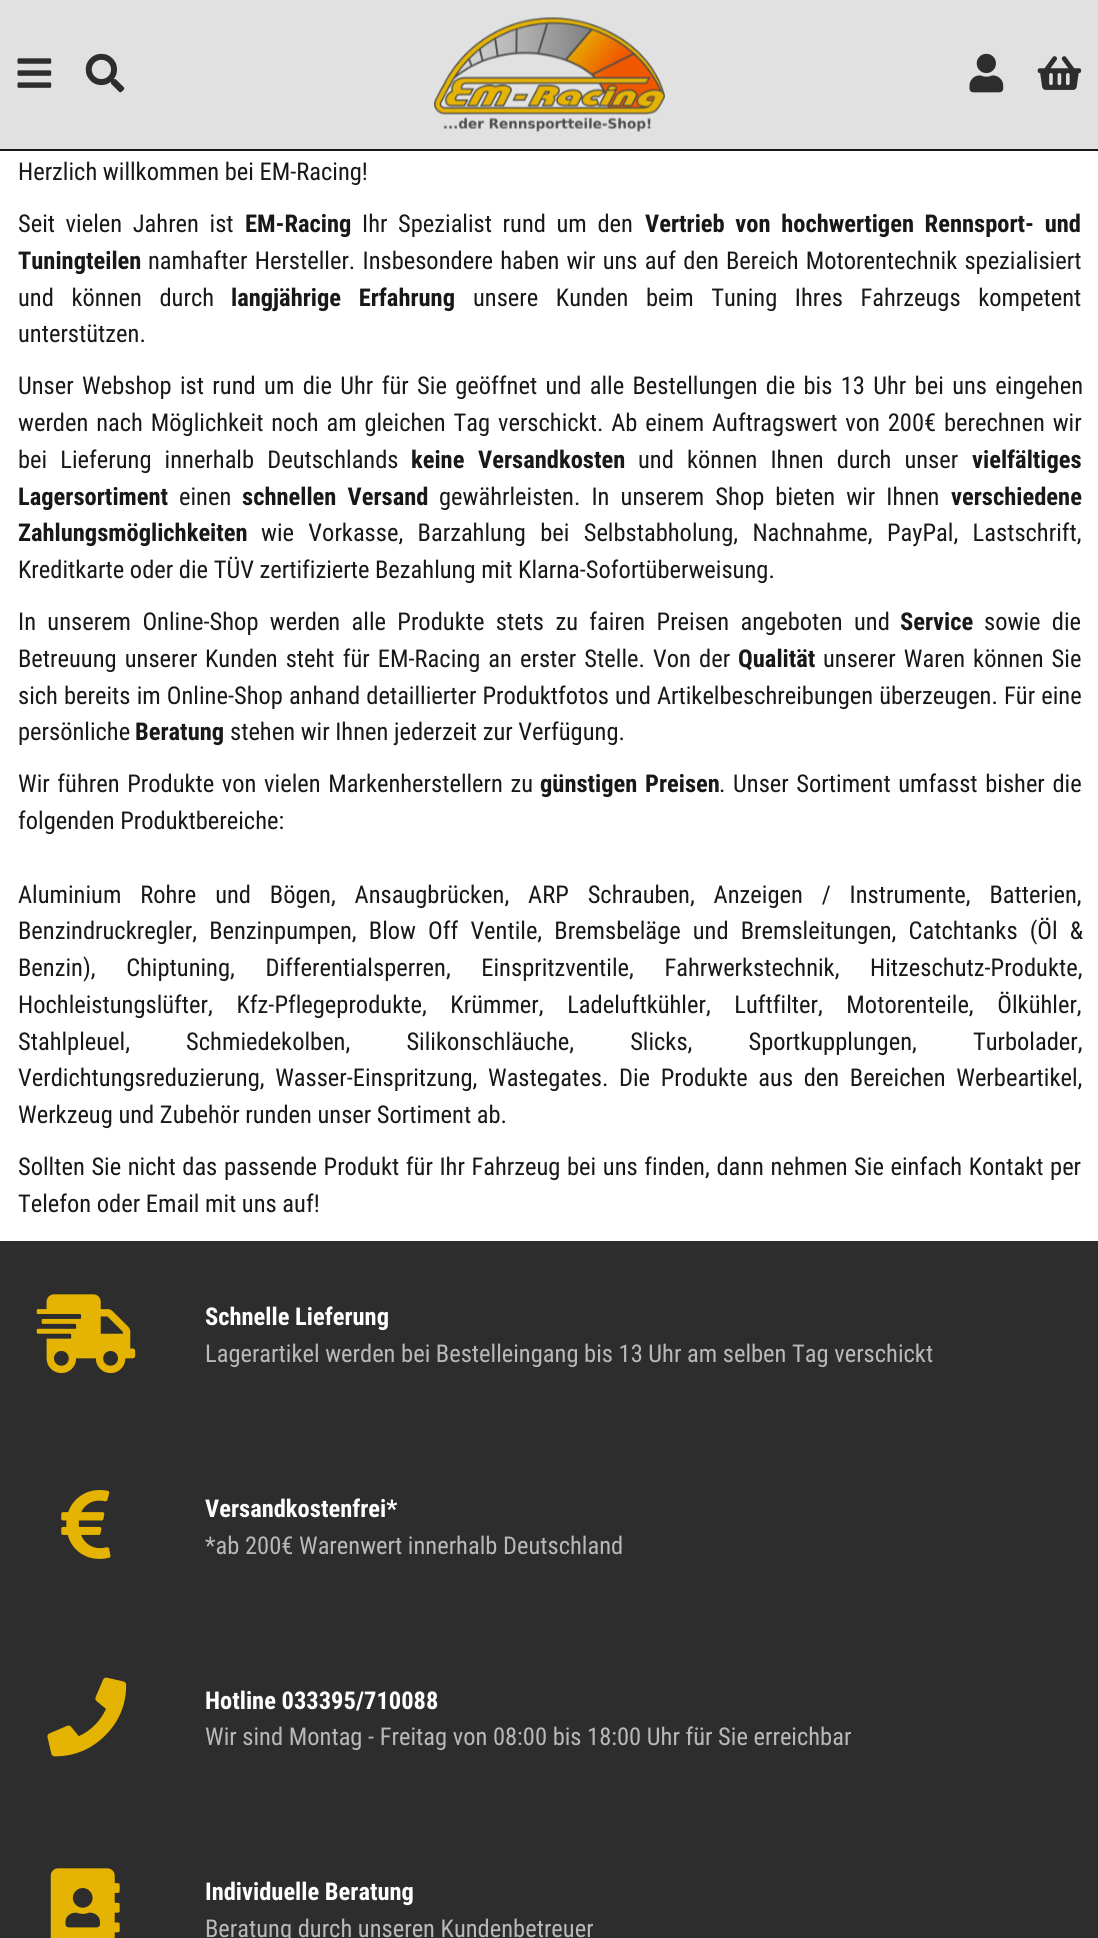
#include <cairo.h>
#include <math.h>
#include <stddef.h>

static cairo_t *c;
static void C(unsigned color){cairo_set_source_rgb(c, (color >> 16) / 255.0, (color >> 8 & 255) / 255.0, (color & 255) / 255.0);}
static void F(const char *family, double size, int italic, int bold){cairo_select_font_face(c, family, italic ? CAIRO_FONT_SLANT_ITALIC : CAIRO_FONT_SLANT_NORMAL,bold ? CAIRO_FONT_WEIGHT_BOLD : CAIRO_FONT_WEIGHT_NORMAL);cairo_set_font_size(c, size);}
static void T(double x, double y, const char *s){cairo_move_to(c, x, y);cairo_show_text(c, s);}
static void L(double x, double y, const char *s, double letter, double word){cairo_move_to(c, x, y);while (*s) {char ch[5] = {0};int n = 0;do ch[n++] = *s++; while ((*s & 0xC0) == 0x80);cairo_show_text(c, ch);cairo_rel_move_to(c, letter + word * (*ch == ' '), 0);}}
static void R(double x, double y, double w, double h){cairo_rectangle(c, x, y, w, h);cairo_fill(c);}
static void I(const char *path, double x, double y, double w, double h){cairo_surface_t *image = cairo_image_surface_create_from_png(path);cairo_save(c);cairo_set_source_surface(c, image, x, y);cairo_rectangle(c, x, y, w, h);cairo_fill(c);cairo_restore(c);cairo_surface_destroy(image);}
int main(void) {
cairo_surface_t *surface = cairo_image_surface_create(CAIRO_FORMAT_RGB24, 1098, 1938);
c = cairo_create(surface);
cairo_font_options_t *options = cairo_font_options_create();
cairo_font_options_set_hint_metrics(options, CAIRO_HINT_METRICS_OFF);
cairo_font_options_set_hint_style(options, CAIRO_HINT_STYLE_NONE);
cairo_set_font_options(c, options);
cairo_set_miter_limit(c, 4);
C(0xffffff);
cairo_paint(c);
C(0xe1e1e1);
R(0,0,1098,149);
C(0x181819);
R(0,149,1098,2);
I("1.png",17,58,35,30);
I("2.png",85,53,40,40);
I("3.png",434,17,231,115);
I("4.png",969,53,35,40);
I("5.png",1037,56,45,34);
F("Roboto Condensed",24.5,0,0);
T(18,180,"Herzlich willkommen bei EM-Racing!");
L(18,232,"Seit vielen Jahren ist",0,5);
F("Roboto Condensed",24.5,0,1);
T(245,232,"EM-Racing");
F("Roboto Condensed",24.5,0,0);
L(362,232,"Ihr Spezialist rund um den",0,5);
F("Roboto Condensed",24.5,0,1);
L(645,232,"Vertrieb von hochwertigen Rennsport- und",0,5);
T(18,269,"Tuningteilen");
F("Roboto Condensed",24.5,0,0);
L(148,269,"namhafter Hersteller. Insbesondere haben wir uns auf den Bereich Motorentechnik spezialisiert",0,1.6);
L(18,306,"und können durch",0,12);
F("Roboto Condensed",24.5,0,1);
L(231,306,"langjährige Erfahrung",0,12);
F("Roboto Condensed",24.5,0,0);
L(473,306,"unsere Kunden beim Tuning Ihres Fahrzeugs kompetent",0,12);
T(18,342,"unterstützen.");
L(18,394,"Unser Webshop ist rund um die Uhr für Sie geöffnet und alle Bestellungen die bis 13 Uhr bei uns eingehen",0,2.75);
L(18,431,"werden nach Möglichkeit noch am gleichen Tag verschickt. Ab einem Auftragswert von 200€ berechnen wir",0,2.25);
L(18,468,"bei Lieferung innerhalb Deutschlands",0,7.5);
F("Roboto Condensed",24.5,0,1);
L(411,468,"keine Versandkosten",0,8);
F("Roboto Condensed",24.5,0,0);
L(638,468,"und können Ihnen durch unser",0,7.5);
F("Roboto Condensed",24.5,0,1);
T(972,468,"vielfältiges");
T(18,505,"Lagersortiment");
F("Roboto Condensed",24.5,0,0);
T(179,505,"einen");
F("Roboto Condensed",24.5,0,1);
L(242,505,"schnellen Versand",0,5.5);
F("Roboto Condensed",24.5,0,0);
L(439,505,"gewährleisten. In unserem Shop bieten wir Ihnen",0,5.5);
F("Roboto Condensed",24.5,0,1);
T(951,505,"verschiedene");
T(18,541,"Zahlungsmöglichkeiten");
F("Roboto Condensed",24.5,0,0);
L(261,541,"wie Vorkasse, Barzahlung bei Selbstabholung, Nachnahme, PayPal, Lastschrift,",0,8.75);
T(18,578,"Kreditkarte oder die TÜV zertifizierte Bezahlung mit Klarna-Sofortüberweisung.");
L(18,630,"In unserem Online-Shop werden alle Produkte stets zu fairen Preisen angeboten und",0,5.75);
F("Roboto Condensed",24.5,0,1);
T(900,630,"Service");
F("Roboto Condensed",24.5,0,0);
L(984,630,"sowie die",0,5.75);
L(18,667,"Betreuung unserer",0,2.5);
L(205,667,"Kunden steht für EM-Racing an erster Stelle. Von der",0,2.5);
F("Roboto Condensed",24.5,0,1);
T(738,667,"Qualität");
F("Roboto Condensed",24.5,0,0);
L(823,667,"unserer Waren können Sie",0,2.5);
L(18,704,"sich bereits im Online-Shop anhand detaillierter Produktfotos und Artikelbeschreibungen überzeugen. Für eine",0,.5);
T(18,740,"persönliche");
F("Roboto Condensed",24.5,0,1);
T(135,740,"Beratung");
F("Roboto Condensed",24.5,0,0);
T(230,740,"stehen wir Ihnen jederzeit zur Verfügung.");
L(18,792,"Wir führen Produkte von vielen Markenherstellern zu",0,2);
F("Roboto Condensed",24.5,0,1);
L(540,792,"günstigen Preisen",0,2);
F("Roboto Condensed",24.5,0,0);
L(719,792,". Unser Sortiment umfasst bisher die",0,2);
T(18,829,"folgenden Produktbereiche:");
L(18,903,"Aluminium Rohre und Bögen, Ansaugbrücken, ARP Schrauben, Anzeigen / Instrumente, Batterien,",0,13.25);
L(18,939,"Benzindruckregler, Benzinpumpen, Blow Off Ventile, Bremsbeläge und Bremsleitungen, Catchtanks (Öl &",0,6.5);
L(18,976,"Benzin), Chiptuning, Differentialsperren, Einspritzventile, Fahrwerkstechnik, Hitzeschutz-Produkte,",0,25);
L(18,1013,"Hochleistungslüfter, Kfz-Pflegeprodukte, Krümmer, Ladeluftkühler, Luftfilter, Motorenteile, Ölkühler,",0,18);
L(18,1050,"Stahlpleuel, Schmiedekolben, Silikonschläuche, Slicks, Sportkupplungen, Turbolader,",0,50.5);
L(18,1086,"Verdichtungsreduzierung, Wasser-Einspritzung, Wastegates. Die Produkte aus den Bereichen Werbeartikel,",0,5);
T(18,1123,"Werkzeug und Zubehör runden unser Sortiment ab.");
L(18,1175,"Sollten Sie nicht das passende Produkt für Ihr Fahrzeug bei uns finden, dann nehmen Sie einfach Kontakt per",0,1);
T(18,1212,"Telefon oder Email mit uns auf!");
C(0x2d2d2d);
R(0,1241,1098,697);
I("6.png",36,1294,100,80);
F("Roboto Condensed",24.5,0,1);
C(0xffffff);
T(205,1325,"Schnelle Lieferung");
F("Roboto Condensed",24.5,0,0);
C(0xb9b9b9);
T(205,1362,"Lagerartikel werden bei Bestelleingang bis 13 Uhr am selben Tag verschickt");
I("7.png",61,1490,50,69);
F("Roboto Condensed",24.5,0,1);
C(0xffffff);
T(205,1517,"Versandkostenfrei*");
F("Roboto Condensed",24.5,0,0);
C(0xb9b9b9);
T(205,1554,"*ab 200€ Warenwert innerhalb Deutschland");
I("8.png",47,1677,80,80);
F("Roboto Condensed",24.5,0,1);
C(0xffffff);
T(205,1709,"Hotline 033395/710088");
F("Roboto Condensed",24.5,0,0);
C(0xb9b9b9);
T(205,1745,"Wir sind Montag - Freitag von 08:00 bis 18:00 Uhr für Sie erreichbar");
I("9.png",50,1868,70,70);
F("Roboto Condensed",24.5,0,1);
C(0xffffff);
T(205,1900,"Individuelle Beratung");
F("Roboto Condensed",24.5,0,0);
C(0xb9b9b9);
T(205,1937,"Beratung durch unseren Kundenbetreuer");
cairo_surface_write_to_png(surface, "o.png");
cairo_font_options_destroy(options);
cairo_destroy(c);
cairo_surface_destroy(surface);
return 0;
}
